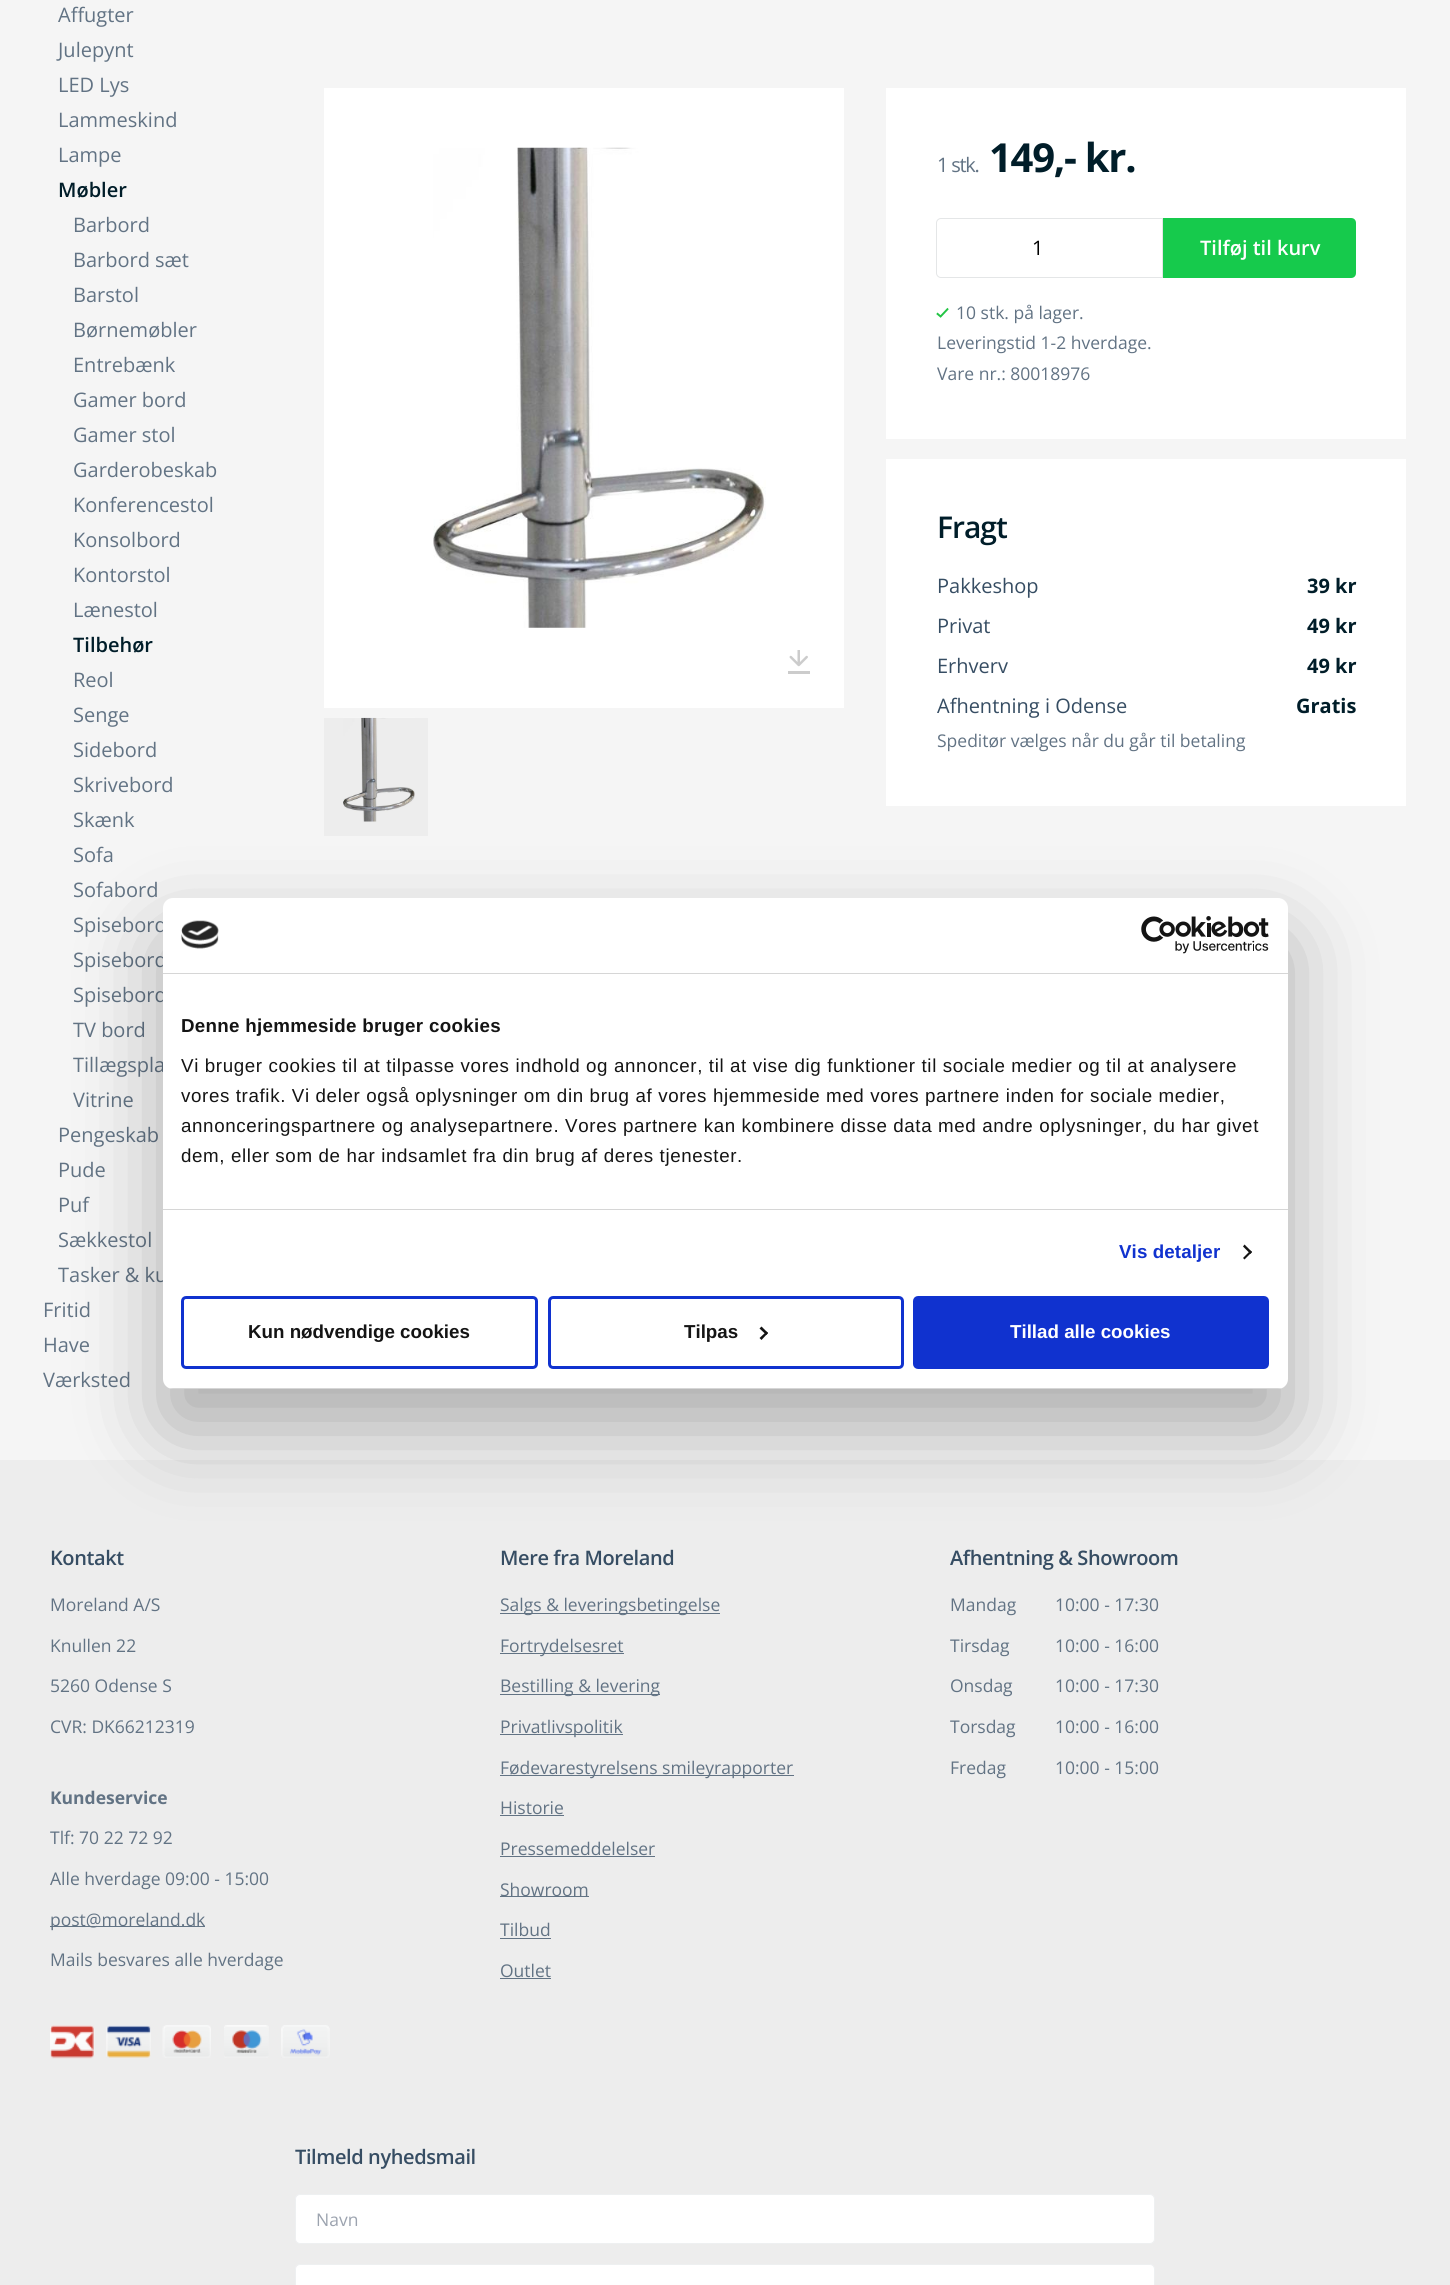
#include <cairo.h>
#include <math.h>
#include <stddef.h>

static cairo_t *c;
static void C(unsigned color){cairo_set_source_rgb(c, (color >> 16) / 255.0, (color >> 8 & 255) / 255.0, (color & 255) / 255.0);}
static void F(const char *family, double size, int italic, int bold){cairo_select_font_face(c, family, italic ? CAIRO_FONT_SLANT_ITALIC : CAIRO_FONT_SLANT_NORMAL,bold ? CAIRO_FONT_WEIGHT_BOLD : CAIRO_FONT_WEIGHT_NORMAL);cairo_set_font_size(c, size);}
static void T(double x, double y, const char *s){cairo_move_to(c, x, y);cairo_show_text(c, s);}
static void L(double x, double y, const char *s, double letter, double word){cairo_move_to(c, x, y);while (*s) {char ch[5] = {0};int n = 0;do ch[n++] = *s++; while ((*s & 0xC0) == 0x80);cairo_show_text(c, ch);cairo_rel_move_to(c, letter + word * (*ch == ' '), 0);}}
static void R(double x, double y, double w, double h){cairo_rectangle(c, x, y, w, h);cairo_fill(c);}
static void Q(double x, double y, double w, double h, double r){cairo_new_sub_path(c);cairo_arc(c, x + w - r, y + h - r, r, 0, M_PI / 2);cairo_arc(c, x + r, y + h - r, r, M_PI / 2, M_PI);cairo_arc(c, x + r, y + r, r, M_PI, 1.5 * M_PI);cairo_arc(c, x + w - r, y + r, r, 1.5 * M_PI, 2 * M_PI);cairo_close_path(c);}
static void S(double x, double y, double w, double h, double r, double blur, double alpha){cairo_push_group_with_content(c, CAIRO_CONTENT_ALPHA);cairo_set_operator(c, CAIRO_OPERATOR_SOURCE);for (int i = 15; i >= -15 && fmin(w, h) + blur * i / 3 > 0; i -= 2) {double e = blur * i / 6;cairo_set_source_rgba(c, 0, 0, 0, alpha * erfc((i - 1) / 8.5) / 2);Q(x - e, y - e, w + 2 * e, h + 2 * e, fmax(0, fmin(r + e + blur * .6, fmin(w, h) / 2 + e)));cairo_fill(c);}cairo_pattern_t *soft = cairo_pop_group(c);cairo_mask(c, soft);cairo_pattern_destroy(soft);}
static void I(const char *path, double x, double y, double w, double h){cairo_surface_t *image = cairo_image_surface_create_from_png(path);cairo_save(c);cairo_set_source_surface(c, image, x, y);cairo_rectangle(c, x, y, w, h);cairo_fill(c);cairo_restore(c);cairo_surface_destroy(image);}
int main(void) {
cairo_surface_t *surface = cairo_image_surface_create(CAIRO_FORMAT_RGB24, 1450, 2285);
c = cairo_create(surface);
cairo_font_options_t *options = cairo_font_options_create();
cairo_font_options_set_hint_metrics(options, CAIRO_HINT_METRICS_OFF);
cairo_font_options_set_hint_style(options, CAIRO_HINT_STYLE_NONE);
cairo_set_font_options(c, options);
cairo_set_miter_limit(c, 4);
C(0xf5f5f5);
cairo_paint(c);
F("Open Sans",20,0,0);
C(0x627384);
T(58,22,"Affugter");
T(58,57,"Julepynt");
T(58,92,"LED Lys");
T(58,127,"Lammeskind");
T(58,162,"Lampe");
F("Open Sans SemiBold",20,0,0);
C(0x001d29);
T(58,197,"Møbler");
F("Open Sans",20,0,0);
C(0x627384);
T(73,232,"Barbord");
T(73,267,"Barbord sæt");
T(73,302,"Barstol");
T(73,337,"Børnemøbler");
T(73,372,"Entrebænk");
T(73,407,"Gamer bord");
T(73,442,"Gamer stol");
T(73,477,"Garderobeskab");
T(73,512,"Konferencestol");
T(73,547,"Konsolbord");
T(73,582,"Kontorstol");
T(73,617,"Lænestol");
F("Open Sans SemiBold",20,0,0);
C(0x001d29);
T(73,652,"Tilbehør");
F("Open Sans",20,0,0);
C(0x627384);
T(73,687,"Reol");
T(73,722,"Senge");
T(73,757,"Sidebord");
T(73,792,"Skrivebord");
T(73,827,"Skænk");
T(73,862,"Sofa");
T(73,897,"Sofabord");
T(73,932,"Spisebord");
T(73,967,"Spisebord");
T(73,1002,"Spisebord");
T(73,1037,"TV bord");
T(73,1072,"Tillægspla");
T(73,1107,"Vitrine");
T(58,1142,"Pengeskab");
T(58,1177,"Pude");
T(58,1212,"Puf");
T(58,1247,"Sækkestol");
T(58,1282,"Tasker & ku");
T(43,1317,"Fritid");
T(43,1352,"Have");
T(43,1387,"Værksted");
C(0xffffff);
R(324,88,520,620);
I("1.png",433,147,333,481);
I("2.png",788,650,22,24);
C(0xededed);
R(324,718,104,118);
I("3.png",343,717,72,105);
C(0xffffff);
R(886,88,520,351);
C(0x627384);
L(937,172,"1 stk.",-1.25,0);
F("Open Sans",40,0,1);
C(0x001d29);
L(989,172,"149,- kr.",-1.25,0);
cairo_new_path(c);
cairo_move_to(c,941,218.5);
cairo_line_to(c,1162.5,218.5);
cairo_line_to(c,1162.5,277.5);
cairo_line_to(c,941,277.5);
cairo_curve_to(c,938.5,277.5,936.5,275.5,936.5,273);
cairo_line_to(c,936.5,223);
cairo_curve_to(c,936.5,220.5,938.5,218.5,941,218.5);
cairo_close_path(c);
C(0xe4e6e7);
cairo_set_line_width(c,1);
cairo_stroke(c);
F("Open Sans",20,0,0);
C(0x000000);
T(1032,255,"1");
C(0x16ca4c);
cairo_new_path(c);
cairo_move_to(c,1163,218);
cairo_line_to(c,1351,218);
cairo_curve_to(c,1354,218,1356,220,1356,223);
cairo_line_to(c,1356,273);
cairo_curve_to(c,1356,276,1354,278,1351,278);
cairo_line_to(c,1163,278);
cairo_close_path(c);
cairo_fill(c);
F("Open Sans SemiBold",20,0,0);
C(0xffffff);
T(1200,255,"Tilføj til kurv");
I("4.png",936,307,13,11);
F("Open Sans",17.5,0,0);
C(0x627384);
T(956,319,"10 stk. på lager.");
T(937,349,"Leveringstid 1-2 hverdage.");
T(937,380,"Vare nr.: 80018976");
C(0xffffff);
R(886,459,520,347);
F("Open Sans SemiBold",30,0,0);
C(0x001d29);
L(937,538,"Fragt",-1,0);
F("Open Sans",20,0,0);
C(0x364d63);
T(937,593,"Pakkeshop");
F("Open Sans",20,0,1);
C(0x001d29);
T(1307,593,"39 kr");
F("Open Sans",20,0,0);
C(0x364d63);
T(937,633,"Privat");
F("Open Sans",20,0,1);
C(0x001d29);
T(1307,633,"49 kr");
F("Open Sans",20,0,0);
C(0x364d63);
T(937,673,"Erhverv");
F("Open Sans",20,0,1);
C(0x001d29);
T(1307,673,"49 kr");
F("Open Sans",20,0,0);
C(0x364d63);
T(937,713,"Afhentning i Odense");
F("Open Sans",20,0,1);
C(0x001d29);
T(1296,713,"Gratis");
F("Open Sans",17.5,0,0);
C(0x627384);
T(937,747,"Speditør vælges når du går til betaling");
C(0xededed);
R(0,1460,1450,825);
C(0x000000);
S(163,938,1125,491,10,42.5,.3);
C(0xffffff);
Q(163,898,1125,491,10);
cairo_fill(c);
C(0xd6d6d6);
R(163,973,1125,1);
I("5.png",181,920,38,29);
I("6.png",1141,916,128,38);
R(163,1209,1125,1);
F("Liberation Sans",18.75,0,1);
C(0x141414);
L(181,1032,"Denne hjemmeside bruger cookies",.3,0);
F("Liberation Sans",18.75,0,0);
L(181,1072,"Vi bruger cookies til at tilpasse vores indhold og annoncer, til at vise dig funktioner til sociale medier og til at analysere",.62,0);
L(181,1102,"vores trafik. Vi deler også oplysninger om din brug af vores hjemmeside med vores partnere inden for sociale medier,",.62,0);
L(181,1132,"annonceringspartnere og analysepartnere. Vores partnere kan kombinere disse data med andre oplysninger, du har givet",.62,0);
L(181,1162,"dem, eller som de har indsamlet fra din brug af deres tjenester.",.62,0);
F("Liberation Sans",18.75,0,1);
C(0x1032cf);
L(1119,1258,"Vis detaljer",.1,0);
C(0x141414);
cairo_new_path(c);
cairo_move_to(c,1244.5,1244.5);
cairo_line_to(c,1252,1252);
cairo_line_to(c,1250.5,1254);
cairo_line_to(c,1243,1246.5);
cairo_close_path(c);
cairo_fill(c);
cairo_new_path(c);
cairo_move_to(c,1250.5,1250.5);
cairo_line_to(c,1252,1252);
cairo_line_to(c,1244.5,1259.5);
cairo_line_to(c,1243,1258);
cairo_close_path(c);
cairo_fill(c);
cairo_save(c);
Q(163,898,1125,491,10);
cairo_clip(c);
C(0xd6d6d6);
R(163,1388,1125,1);
cairo_restore(c);
Q(182.5,1297.5,354,70,3.5);
C(0x1032cf);
cairo_set_line_width(c,3);
cairo_stroke(c);
C(0x141414);
T(248,1338,"Kun nødvendige cookies");
Q(549.5,1297.5,353,70,3.5);
C(0x1032cf);
cairo_stroke(c);
C(0x141414);
T(684,1338,"Tilpas");
cairo_new_path(c);
cairo_move_to(c,761.5,1326.5);
cairo_line_to(c,768,1333);
cairo_line_to(c,766.5,1335);
cairo_line_to(c,759.5,1328.5);
cairo_close_path(c);
cairo_fill(c);
cairo_new_path(c);
cairo_move_to(c,766.5,1331.5);
cairo_line_to(c,768,1333);
cairo_line_to(c,761.5,1340);
cairo_line_to(c,759.5,1338);
cairo_close_path(c);
cairo_fill(c);
C(0x1032cf);
Q(914.5,1297.5,353,70,3.5);
cairo_fill_preserve(c);
cairo_stroke(c);
C(0xffffff);
T(1010,1338,"Tillad alle cookies");
F("Open Sans SemiBold",20,0,0);
C(0x364d63);
L(50,1565,"Kontakt",-.4,0);
F("Open Sans",17.5,0,0);
C(0x627384);
T(50,1611,"Moreland A/S");
T(50,1652,"Knullen 22");
T(50,1692,"5260 Odense S");
T(50,1733,"CVR: DK66212319");
F("Open Sans",17.5,0,1);
T(50,1804,"Kundeservice");
F("Open Sans",17.5,0,0);
T(50,1844,"Tlf: 70 22 72 92");
T(50,1885,"Alle hverdage 09:00 - 15:00");
R(50,1926,155,1);
T(50,1926,"post@moreland.dk");
T(50,1966,"Mails besvares alle hverdage");
I("7.png",50,2025,45,34);
I("8.png",106,2025,45,33);
I("9.png",162,2025,49,33);
I("10.png",224,2025,45,33);
I("11.png",281,2025,49,33);
F("Open Sans SemiBold",20,0,0);
C(0x364d63);
L(500,1565,"Mere fra Moreland",-.4,0);
C(0x627384);
R(500,1613,220,1);
F("Open Sans",17.5,0,0);
T(500,1611,"Salgs & leveringsbetingelse");
R(500,1653,124,1);
T(500,1652,"Fortrydelsesret");
R(500,1694,160,1);
T(500,1692,"Bestilling & levering");
R(500,1734,123,1);
T(500,1733,"Privatlivspolitik");
R(500,1775,294,1);
T(500,1774,"Fødevarestyrelsens smileyrapporter");
T(500,1814,"Historie");
R(500,1815,64,1);
T(500,1855,"Pressemeddelelser");
R(500,1856,155,1);
R(500,1896,89,1);
T(500,1896,"Showroom");
T(500,1936,"Tilbud");
R(500,1938,51,1);
T(500,1977,"Outlet");
R(500,1978,51,1);
F("Open Sans SemiBold",20,0,0);
C(0x364d63);
L(950,1565,"Afhentning & Showroom",-.4,0);
F("Open Sans",17.5,0,0);
C(0x627384);
T(950,1611,"Mandag");
T(1055,1611,"10:00 - 17:30");
T(950,1652,"Tirsdag");
T(1055,1652,"10:00 - 16:00");
T(950,1692,"Onsdag");
T(1055,1692,"10:00 - 17:30");
T(950,1733,"Torsdag");
T(1055,1733,"10:00 - 16:00");
T(950,1774,"Fredag");
T(1055,1774,"10:00 - 15:00");
F("Open Sans SemiBold",20,0,0);
C(0x364d63);
L(295,2164,"Tilmeld nyhedsmail",-.4,0);
C(0xffffff);
Q(295.5,2194.5,859,49,4.5);
cairo_fill_preserve(c);
C(0xeef0f1);
cairo_set_line_width(c,1);
cairo_stroke(c);
F("Open Sans",17.5,0,0);
C(0x9ca3af);
T(316,2226,"Navn");
C(0xffffff);
Q(295.5,2264.5,859,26,4.5);
cairo_fill_preserve(c);
C(0xeef0f1);
cairo_stroke(c);
cairo_surface_write_to_png(surface, "o.png");
cairo_font_options_destroy(options);
cairo_destroy(c);
cairo_surface_destroy(surface);
return 0;
}
